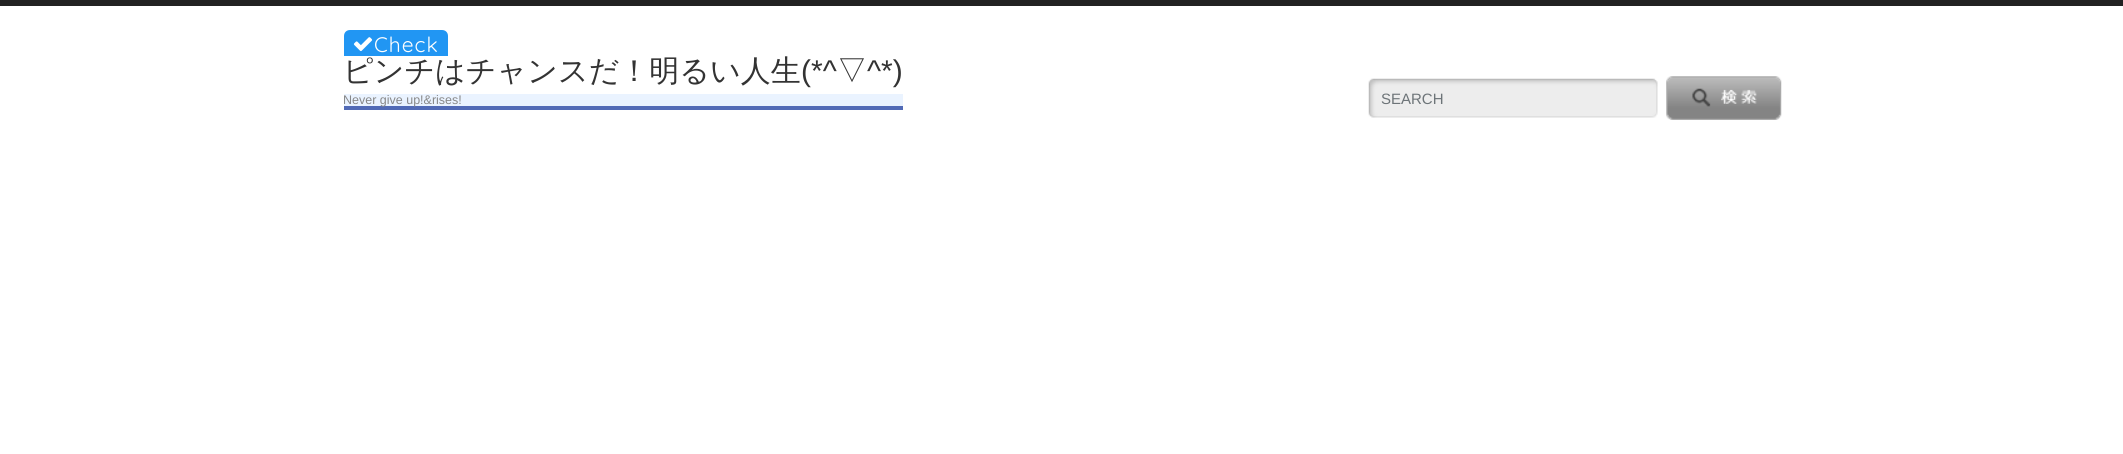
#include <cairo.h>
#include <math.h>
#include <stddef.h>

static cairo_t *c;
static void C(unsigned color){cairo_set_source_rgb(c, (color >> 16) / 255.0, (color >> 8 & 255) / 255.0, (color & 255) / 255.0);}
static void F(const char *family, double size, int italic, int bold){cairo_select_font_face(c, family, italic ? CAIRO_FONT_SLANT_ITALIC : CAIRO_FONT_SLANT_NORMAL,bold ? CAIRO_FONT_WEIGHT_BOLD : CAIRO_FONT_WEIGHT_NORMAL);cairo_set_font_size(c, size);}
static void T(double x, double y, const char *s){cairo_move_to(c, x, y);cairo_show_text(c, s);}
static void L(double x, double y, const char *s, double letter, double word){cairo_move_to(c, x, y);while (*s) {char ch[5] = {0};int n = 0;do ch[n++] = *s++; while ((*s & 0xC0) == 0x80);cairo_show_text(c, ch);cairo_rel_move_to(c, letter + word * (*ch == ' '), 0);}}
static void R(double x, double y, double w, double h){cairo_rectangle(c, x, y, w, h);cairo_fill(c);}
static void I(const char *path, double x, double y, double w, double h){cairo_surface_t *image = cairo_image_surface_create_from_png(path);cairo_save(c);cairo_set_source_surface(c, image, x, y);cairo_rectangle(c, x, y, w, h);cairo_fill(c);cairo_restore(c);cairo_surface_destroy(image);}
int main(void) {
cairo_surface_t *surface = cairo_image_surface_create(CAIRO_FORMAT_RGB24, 2123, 454);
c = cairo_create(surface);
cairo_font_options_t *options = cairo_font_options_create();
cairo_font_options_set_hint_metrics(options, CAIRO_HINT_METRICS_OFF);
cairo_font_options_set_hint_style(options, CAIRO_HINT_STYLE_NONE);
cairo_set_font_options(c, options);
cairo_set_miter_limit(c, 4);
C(0xffffff);
cairo_paint(c);
C(0x222222);
R(0,0,2123,6);
C(0x2196f3);
cairo_new_path(c);
cairo_move_to(c,350,30);
cairo_line_to(c,442,30);
cairo_curve_to(c,445.5,30,448,32.5,448,36);
cairo_line_to(c,448,56);
cairo_line_to(c,344,56);
cairo_line_to(c,344,36);
cairo_curve_to(c,344,32.5,346.5,30,350,30);
cairo_close_path(c);
cairo_fill(c);
I("1.png",353,37,20,15);
F("Quicksand",21,0,0);
C(0xffffff);
L(374,52,"Check",1,0);
F("WenQuanYi Zen Hei Medium",30,0,0);
C(0x333333);
T(343,81,"ピンチはチャンスだ！明るい人生");
F("Liberation Sans",30,0,0);
T(801,81,"(*^");
F("WenQuanYi Zen Hei Medium",30,0,0);
T(837,81,"▽");
F("Liberation Sans",30,0,0);
T(867,81,"^*)");
C(0xeaf3ff);
R(344,94,559,12);
C(0x516ab6);
R(344,106,559,4);
F("Liberation Sans",12.5,0,0);
C(0x888888);
T(343,104,"Never give up!&rises!");
I("2.png",1368,78,290,40);
F("Liberation Sans",15,0,0);
C(0x6d7478);
T(1381,104,"SEARCH");
I("3.png",1666,76,116,44);
cairo_surface_write_to_png(surface, "o.png");
cairo_font_options_destroy(options);
cairo_destroy(c);
cairo_surface_destroy(surface);
return 0;
}
